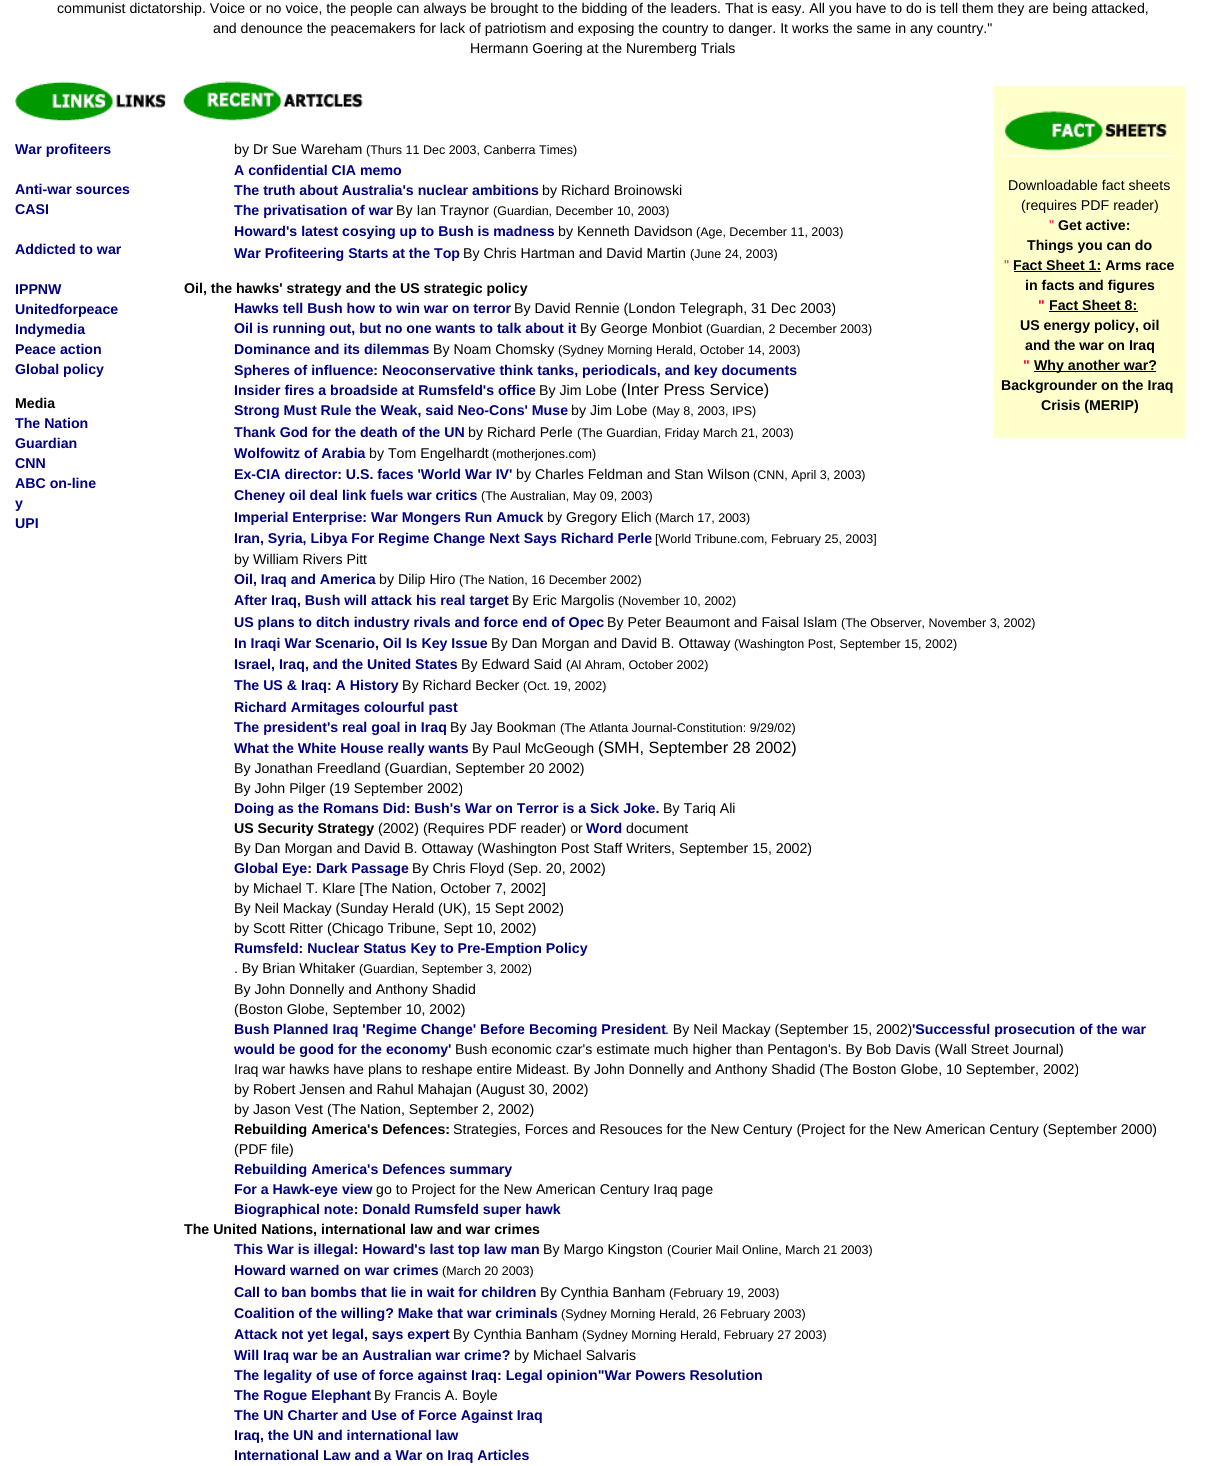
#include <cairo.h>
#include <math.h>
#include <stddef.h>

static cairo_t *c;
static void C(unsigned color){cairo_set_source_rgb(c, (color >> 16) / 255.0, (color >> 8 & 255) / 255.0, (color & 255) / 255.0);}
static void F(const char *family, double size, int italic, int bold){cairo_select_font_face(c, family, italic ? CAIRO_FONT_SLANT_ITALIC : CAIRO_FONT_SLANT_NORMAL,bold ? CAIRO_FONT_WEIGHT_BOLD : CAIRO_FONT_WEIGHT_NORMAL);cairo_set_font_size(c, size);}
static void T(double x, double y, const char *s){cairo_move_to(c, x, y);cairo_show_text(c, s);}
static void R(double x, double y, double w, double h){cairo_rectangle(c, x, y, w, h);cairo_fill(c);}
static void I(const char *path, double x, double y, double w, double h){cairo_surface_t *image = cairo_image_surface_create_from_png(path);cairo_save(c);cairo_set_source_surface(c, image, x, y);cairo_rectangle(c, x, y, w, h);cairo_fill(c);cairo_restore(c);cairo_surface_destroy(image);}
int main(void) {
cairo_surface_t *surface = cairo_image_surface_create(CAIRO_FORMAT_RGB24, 1205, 1466);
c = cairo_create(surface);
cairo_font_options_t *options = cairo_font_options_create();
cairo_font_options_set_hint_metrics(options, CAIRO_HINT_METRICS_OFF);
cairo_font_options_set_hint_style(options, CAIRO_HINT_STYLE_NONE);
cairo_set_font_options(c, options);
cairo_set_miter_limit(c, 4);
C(0xffffff);
cairo_paint(c);
F("Liberation Sans",14.17,0,0);
C(0x000000);
T(57,13,"communist dictatorship. Voice or no voice, the people can always be brought to the bidding of the leaders. That is easy. All you have to do is tell them they are being attacked,");
T(213,33,"and denounce the peacemakers for lack of patriotism and exposing the country to danger. It works the same in any country.\"");
T(470,53,"Hermann Goering at the Nuremberg Trials");
I("1.png",15,81,151,40);
F("Liberation Sans",14.17,0,1);
C(0x000080);
T(15,154,"War profiteers");
T(15,194,"Anti-war sources");
T(15,214,"CASI");
T(15,254,"Addicted to war");
T(15,294,"IPPNW");
T(15,314,"Unitedforpeace");
T(15,334,"Indymedia");
T(15,354,"Peace action");
T(15,374,"Global policy");
C(0x000000);
T(15,408,"Media");
C(0x000080);
T(15,428,"The Nation");
T(15,448,"Guardian");
T(15,468,"CNN");
T(15,488,"ABC on-line");
T(15,508,"y");
T(15,528,"UPI");
I("2.png",183,81,180,40);
F("Liberation Sans",14.17,0,0);
C(0x000000);
T(234,154,"by Dr Sue Wareham");
F("Liberation Sans",12.5,0,0);
T(366,154,"(Thurs 11 Dec 2003, Canberra Times)");
F("Liberation Sans",14.17,0,1);
C(0x000080);
T(234,175,"A confidential CIA memo");
T(234,195,"The truth about Australia's nuclear ambitions");
F("Liberation Sans",14.17,0,0);
C(0x000000);
T(542,195,"by Richard Broinowski");
F("Liberation Sans",14.17,0,1);
C(0x000080);
T(234,215,"The privatisation of war");
F("Liberation Sans",14.17,0,0);
C(0x000000);
T(396,215,"By Ian Traynor");
F("Liberation Sans",12.5,0,0);
T(493,215,"(Guardian, December 10, 2003)");
F("Liberation Sans",14.17,0,1);
C(0x000080);
T(234,236,"Howard's latest cosying up to Bush is madness");
F("Liberation Sans",14.17,0,0);
C(0x000000);
T(558,236,"by Kenneth Davidson");
F("Liberation Sans",12.5,0,0);
T(696,236,"(Age, December 11, 2003)");
F("Liberation Sans",14.17,0,1);
C(0x000080);
T(234,258,"War Profiteering Starts at the Top");
F("Liberation Sans",14.17,0,0);
C(0x000000);
T(463,258,"By Chris Hartman and David Martin");
F("Liberation Sans",12.5,0,0);
T(690,258,"(June 24, 2003)");
C(0xffffcc);
R(994,86,191,352);
I("3.png",1001,107,177,50);
F("Liberation Sans",14.17,0,0);
C(0x000000);
T(1008,190,"Downloadable fact sheets");
T(1021,210,"(requires PDF reader)");
C(0xff0033);
T(1049,230,"\"");
F("Liberation Sans",14.17,0,1);
C(0x000000);
T(1058,230,"Get active:");
T(1027,250,"Things you can do");
F("Liberation Sans",14.17,0,0);
C(0xff0033);
T(1004,270,"\"");
F("Liberation Sans",14.17,0,1);
C(0x000000);
T(1013,270,"Fact Sheet 1: Arms race");
R(1014,271,87,1);
T(1025,290,"in facts and figures");
C(0xff0033);
T(1038,310,"\"");
C(0x000000);
T(1049,310,"Fact Sheet 8:");
R(1049,311,89,1);
T(1020,330,"US energy policy, oil");
T(1025,350,"and the war on Iraq");
C(0xff0033);
T(1023,370,"\"");
C(0x000000);
R(1034,371,122,1);
T(1034,370,"Why another war?");
T(1001,390,"Backgrounder on the Iraq");
T(1041,410,"Crisis (MERIP)");
T(184,293,"Oil, the hawks' strategy and the US strategic policy");
C(0x000080);
T(234,313,"Hawks tell Bush how to win war on terror");
F("Liberation Sans",14.17,0,0);
C(0x000000);
T(514,313,"By David Rennie (London Telegraph, 31 Dec 2003)");
F("Liberation Sans",14.17,0,1);
C(0x000080);
T(234,333,"Oil is running out, but no one wants to talk about it");
F("Liberation Sans",14.17,0,0);
C(0x000000);
T(580,333,"By George Monbiot");
F("Liberation Sans",12.5,0,0);
T(706,333,"(Guardian, 2 December 2003)");
F("Liberation Sans",14.17,0,1);
C(0x000080);
T(234,354,"Dominance and its dilemmas");
F("Liberation Sans",14.17,0,0);
C(0x000000);
T(433,354,"By Noam Chomsky");
F("Liberation Sans",12.5,0,0);
T(558,354,"(Sydney Morning Herald, October 14, 2003)");
F("Liberation Sans",14.17,0,1);
C(0x000080);
T(234,375,"Spheres of influence: Neoconservative think tanks, periodicals, and key documents");
T(234,395,"Insider fires a broadside at Rumsfeld's office");
F("Liberation Sans",14.17,0,0);
C(0x000000);
T(539,395,"By Jim Lobe");
F("Liberation Sans",16.25,0,0);
T(621,395,"(Inter Press Service)");
F("Liberation Sans",14.17,0,1);
C(0x000080);
T(234,415,"Strong Must Rule the Weak, said Neo-Cons' Muse");
F("Liberation Sans",14.17,0,0);
C(0x000000);
T(571,415,"by Jim Lobe");
F("Liberation Sans",12.5,0,0);
T(652,415,"(May 8, 2003, IPS)");
F("Liberation Sans",14.17,0,1);
C(0x000080);
T(234,437,"Thank God for the death of the UN");
F("Liberation Sans",14.17,0,0);
C(0x000000);
T(468,437,"by Richard Perle");
F("Liberation Sans",12.5,0,0);
T(577,437,"(The Guardian, Friday March 21, 2003)");
F("Liberation Sans",14.17,0,1);
C(0x000080);
T(234,458,"Wolfowitz of Arabia");
F("Liberation Sans",14.17,0,0);
C(0x000000);
T(369,458,"by Tom Engelhardt");
F("Liberation Sans",12.5,0,0);
T(492,458,"(motherjones.com)");
F("Liberation Sans",14.17,0,1);
C(0x000080);
T(234,479,"Ex-CIA director: U.S. faces 'World War IV'");
F("Liberation Sans",14.17,0,0);
C(0x000000);
T(516,479,"by Charles Feldman and Stan Wilson");
F("Liberation Sans",12.5,0,0);
T(753,479,"(CNN, April 3, 2003)");
F("Liberation Sans",14.17,0,1);
C(0x000080);
T(234,500,"Cheney oil deal link fuels war critics");
F("Liberation Sans",12.5,0,0);
C(0x000000);
T(481,500,"(The Australian, May 09, 2003)");
F("Liberation Sans",14.17,0,1);
C(0x000080);
T(234,522,"Imperial Enterprise: War Mongers Run Amuck");
F("Liberation Sans",14.17,0,0);
C(0x000000);
T(547,522,"by Gregory Elich");
F("Liberation Sans",12.5,0,0);
T(655,522,"(March 17, 2003)");
F("Liberation Sans",14.17,0,1);
C(0x000080);
T(234,543,"Iran, Syria, Libya For Regime Change Next Says Richard Perle");
F("Liberation Sans",12.5,0,0);
C(0x000000);
T(655,543,"[World Tribune.com, February 25, 2003]");
F("Liberation Sans",14.17,0,0);
T(234,564,"by William Rivers Pitt");
F("Liberation Sans",14.17,0,1);
C(0x000080);
T(234,584,"Oil, Iraq and America");
F("Liberation Sans",14.17,0,0);
C(0x000000);
T(379,584,"by Dilip Hiro");
F("Liberation Sans",12.5,0,0);
T(459,584,"(The Nation, 16 December 2002)");
F("Liberation Sans",14.17,0,1);
C(0x000080);
T(234,605,"After Iraq, Bush will attack his real target");
F("Liberation Sans",14.17,0,0);
C(0x000000);
T(512,605,"By Eric Margolis");
F("Liberation Sans",12.5,0,0);
T(618,605,"(November 10, 2002)");
F("Liberation Sans",14.17,0,1);
C(0x000080);
T(234,627,"US plans to ditch industry rivals and force end of Opec");
F("Liberation Sans",14.17,0,0);
C(0x000000);
T(607,627,"By Peter Beaumont and Faisal Islam");
F("Liberation Sans",12.5,0,0);
T(841,627,"(The Observer, November 3, 2002)");
F("Liberation Sans",14.17,0,1);
C(0x000080);
T(234,648,"In Iraqi War Scenario, Oil Is Key Issue");
F("Liberation Sans",14.17,0,0);
C(0x000000);
T(491,648,"By Dan Morgan and David B. Ottaway");
F("Liberation Sans",12.5,0,0);
T(734,648,"(Washington Post, September 15, 2002)");
F("Liberation Sans",14.17,0,1);
C(0x000080);
T(234,669,"Israel, Iraq, and the United States");
F("Liberation Sans",14.17,0,0);
C(0x000000);
T(461,669,"By Edward Said");
F("Liberation Sans",12.5,0,0);
T(566,669,"(Al Ahram, October 2002)");
F("Liberation Sans",14.17,0,1);
C(0x000080);
T(234,690,"The US & Iraq: A History");
F("Liberation Sans",14.17,0,0);
C(0x000000);
T(402,690,"By Richard Becker");
F("Liberation Sans",12.5,0,0);
T(523,690,"(Oct. 19, 2002)");
F("Liberation Sans",14.17,0,1);
C(0x000080);
T(234,712,"Richard Armitages colourful past");
T(234,732,"The president's real goal in Iraq");
F("Liberation Sans",14.17,0,0);
C(0x000000);
T(450,732,"By Jay Bookman");
F("Liberation Sans",12.5,0,0);
T(560,732,"(The Atlanta Journal-Constitution: 9/29/02)");
F("Liberation Sans",14.17,0,1);
C(0x000080);
T(234,753,"What the White House really wants");
F("Liberation Sans",14.17,0,0);
C(0x000000);
T(472,753,"By Paul McGeough");
F("Liberation Sans",16.25,0,0);
T(598,753,"(SMH, September 28 2002)");
F("Liberation Sans",14.17,0,0);
T(234,773,"By Jonathan Freedland (Guardian, September 20 2002)");
T(234,793,"By John Pilger (19 September 2002)");
F("Liberation Sans",14.17,0,1);
C(0x000080);
T(234,813,"Doing as the Romans Did: Bush's War on Terror is a Sick Joke.");
F("Liberation Sans",14.17,0,0);
C(0x000000);
T(663,813,"By Tariq Ali");
F("Liberation Sans",14.17,0,1);
T(234,833,"US Security Strategy");
F("Liberation Sans",14.17,0,0);
T(378,833,"(2002) (Requires PDF reader) or");
F("Liberation Sans",14.17,0,1);
C(0x000080);
T(586,833,"Word");
F("Liberation Sans",14.17,0,0);
C(0x000000);
T(626,833,"document");
T(234,853,"By Dan Morgan and David B. Ottaway (Washington Post Staff Writers, September 15, 2002)");
F("Liberation Sans",14.17,0,1);
C(0x000080);
T(234,873,"Global Eye: Dark Passage");
F("Liberation Sans",14.17,0,0);
C(0x000000);
T(412,873,"By Chris Floyd (Sep. 20, 2002)");
T(234,893,"by Michael T. Klare [The Nation, October 7, 2002]");
T(234,913,"By Neil Mackay (Sunday Herald (UK), 15 Sept 2002)");
T(234,933,"by Scott Ritter (Chicago Tribune, Sept 10, 2002)");
F("Liberation Sans",14.17,0,1);
C(0x000080);
T(234,953,"Rumsfeld: Nuclear Status Key to Pre-Emption Policy");
F("Liberation Sans",14.17,0,0);
C(0x000000);
T(234,973,". By Brian Whitaker");
F("Liberation Sans",12.5,0,0);
T(359,973,"(Guardian, September 3, 2002)");
F("Liberation Sans",14.17,0,0);
T(234,994,"By John Donnelly and Anthony Shadid");
T(234,1014,"(Boston Globe, September 10, 2002)");
F("Liberation Sans",14.17,0,1);
C(0x000080);
T(234,1034,"Bush Planned Iraq 'Regime Change' Before Becoming President");
F("Liberation Sans",14.17,0,0);
C(0x000000);
T(665,1034,". By Neil Mackay (September 15, 2002)");
F("Liberation Sans",14.17,0,1);
C(0x000080);
T(912,1034,"'Successful prosecution of the war");
T(234,1054,"would be good for the economy'");
F("Liberation Sans",14.17,0,0);
C(0x000000);
T(455,1054,"Bush economic czar's estimate much higher than Pentagon's. By Bob Davis (Wall Street Journal)");
T(234,1074,"Iraq war hawks have plans to reshape entire Mideast. By John Donnelly and Anthony Shadid (The Boston Globe, 10 September, 2002)");
T(234,1094,"by Robert Jensen and Rahul Mahajan (August 30, 2002)");
T(234,1114,"by Jason Vest (The Nation, September 2, 2002)");
F("Liberation Sans",14.17,0,1);
T(234,1134,"Rebuilding America's Defences:");
F("Liberation Sans",14.17,0,0);
T(453,1134,"Strategies, Forces and Resouces for the New Century (Project for the New American Century (September 2000)");
T(234,1154,"(PDF file)");
F("Liberation Sans",14.17,0,1);
C(0x000080);
T(234,1174,"Rebuilding America's Defences summary");
T(234,1194,"For a Hawk-eye view");
F("Liberation Sans",14.17,0,0);
C(0x000000);
T(376,1194,"go to Project for the New American Century Iraq page");
F("Liberation Sans",14.17,0,1);
C(0x000080);
T(234,1214,"Biographical note: Donald Rumsfeld super hawk");
C(0x000000);
T(184,1234,"The United Nations, international law and war crimes");
C(0x000080);
T(234,1254,"This War is illegal: Howard's last top law man");
F("Liberation Sans",14.17,0,0);
C(0x000000);
T(543,1254,"By Margo Kingston");
F("Liberation Sans",12.5,0,0);
T(667,1254,"(Courier Mail Online, March 21 2003)");
F("Liberation Sans",14.17,0,1);
C(0x000080);
T(234,1275,"Howard warned on war crimes");
F("Liberation Sans",12.5,0,0);
C(0x000000);
T(442,1275,"(March 20 2003)");
F("Liberation Sans",14.17,0,1);
C(0x000080);
T(234,1297,"Call to ban bombs that lie in wait for children");
F("Liberation Sans",14.17,0,0);
C(0x000000);
T(540,1297,"By Cynthia Banham");
F("Liberation Sans",12.5,0,0);
T(669,1297,"(February 19, 2003)");
F("Liberation Sans",14.17,0,1);
C(0x000080);
T(234,1318,"Coalition of the willing? Make that war criminals");
F("Liberation Sans",12.5,0,0);
C(0x000000);
T(561,1318,"(Sydney Morning Herald, 26 February 2003)");
F("Liberation Sans",14.17,0,1);
C(0x000080);
T(234,1339,"Attack not yet legal, says expert");
F("Liberation Sans",14.17,0,0);
C(0x000000);
T(453,1339,"By Cynthia Banham");
F("Liberation Sans",12.5,0,0);
T(582,1339,"(Sydney Morning Herald, February 27 2003)");
F("Liberation Sans",14.17,0,1);
C(0x000080);
T(234,1360,"Will Iraq war be an Australian war crime?");
F("Liberation Sans",14.17,0,0);
C(0x000000);
T(514,1360,"by Michael Salvaris");
F("Liberation Sans",14.17,0,1);
C(0x000080);
T(234,1380,"The legality of use of force against Iraq: Legal opinion\"War Powers Resolution");
T(234,1400,"The Rogue Elephant");
F("Liberation Sans",14.17,0,0);
C(0x000000);
T(374,1400,"By Francis A. Boyle");
F("Liberation Sans",14.17,0,1);
C(0x000080);
T(234,1420,"The UN Charter and Use of Force Against Iraq");
T(234,1440,"Iraq, the UN and international law");
T(234,1460,"International Law and a War on Iraq Articles");
cairo_surface_write_to_png(surface, "o.png");
cairo_font_options_destroy(options);
cairo_destroy(c);
cairo_surface_destroy(surface);
return 0;
}
